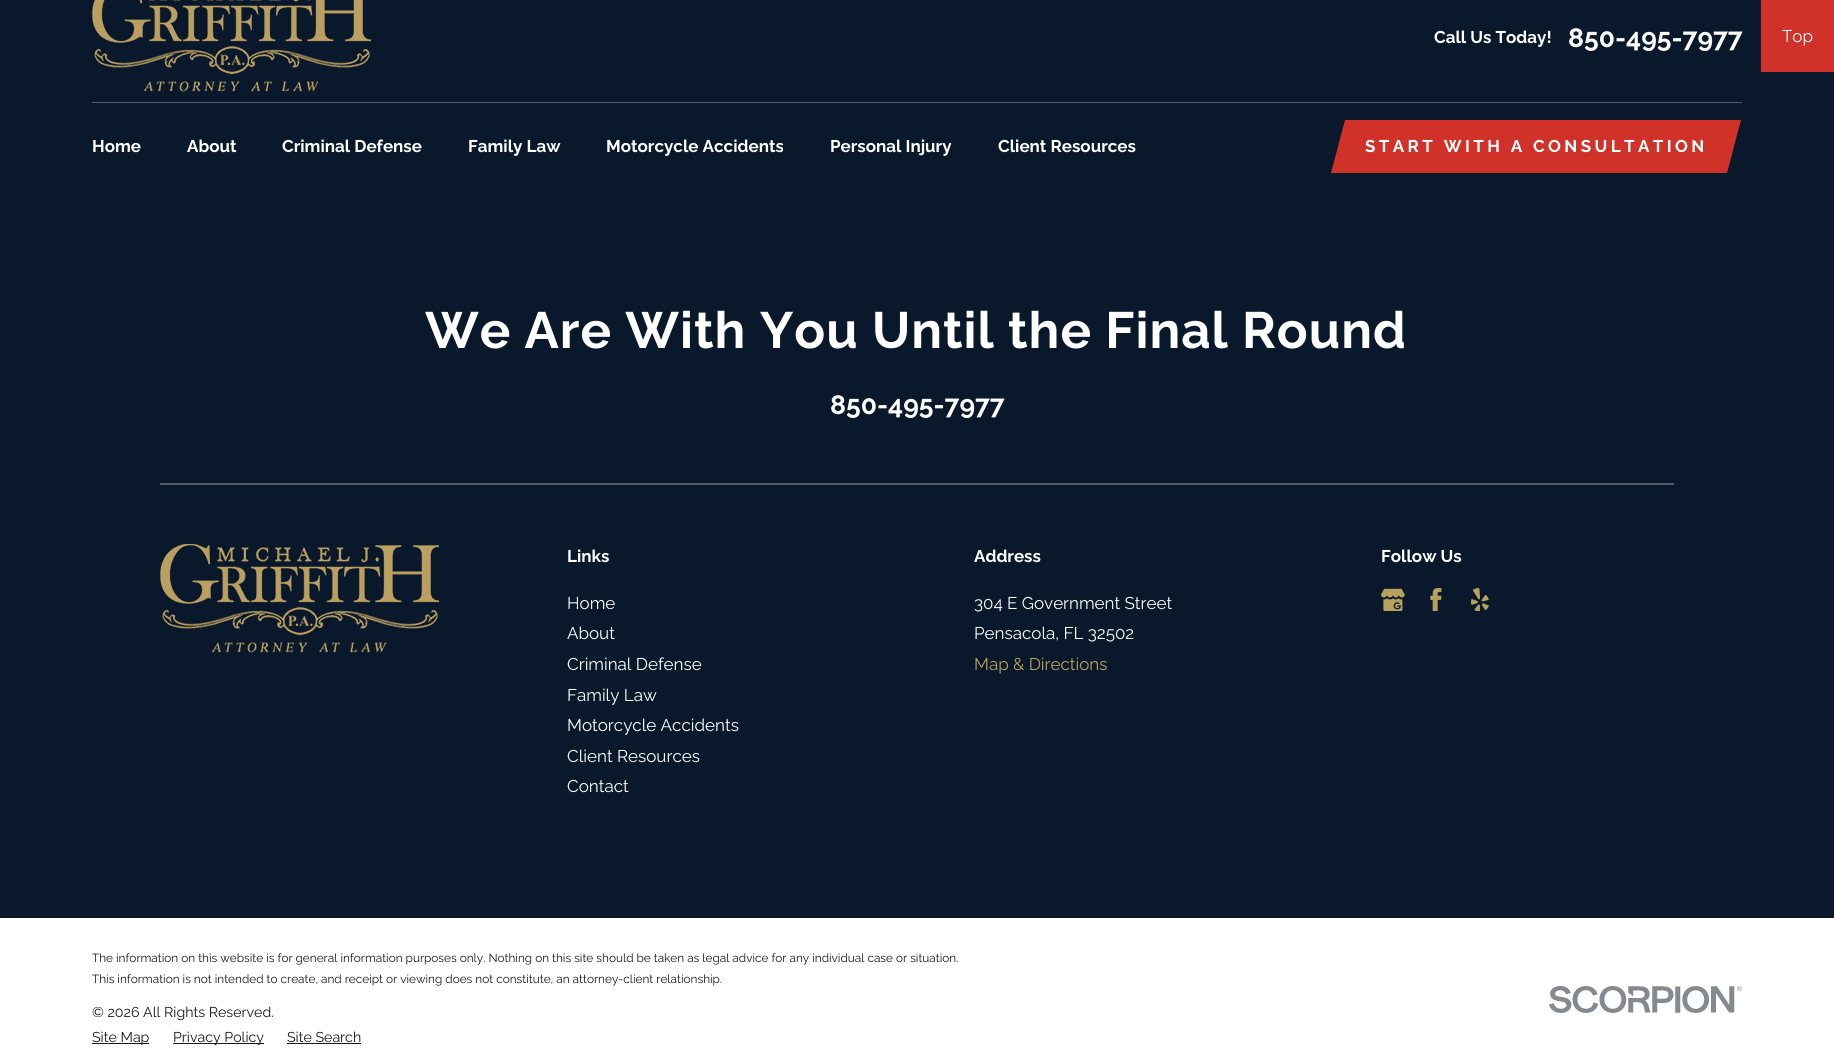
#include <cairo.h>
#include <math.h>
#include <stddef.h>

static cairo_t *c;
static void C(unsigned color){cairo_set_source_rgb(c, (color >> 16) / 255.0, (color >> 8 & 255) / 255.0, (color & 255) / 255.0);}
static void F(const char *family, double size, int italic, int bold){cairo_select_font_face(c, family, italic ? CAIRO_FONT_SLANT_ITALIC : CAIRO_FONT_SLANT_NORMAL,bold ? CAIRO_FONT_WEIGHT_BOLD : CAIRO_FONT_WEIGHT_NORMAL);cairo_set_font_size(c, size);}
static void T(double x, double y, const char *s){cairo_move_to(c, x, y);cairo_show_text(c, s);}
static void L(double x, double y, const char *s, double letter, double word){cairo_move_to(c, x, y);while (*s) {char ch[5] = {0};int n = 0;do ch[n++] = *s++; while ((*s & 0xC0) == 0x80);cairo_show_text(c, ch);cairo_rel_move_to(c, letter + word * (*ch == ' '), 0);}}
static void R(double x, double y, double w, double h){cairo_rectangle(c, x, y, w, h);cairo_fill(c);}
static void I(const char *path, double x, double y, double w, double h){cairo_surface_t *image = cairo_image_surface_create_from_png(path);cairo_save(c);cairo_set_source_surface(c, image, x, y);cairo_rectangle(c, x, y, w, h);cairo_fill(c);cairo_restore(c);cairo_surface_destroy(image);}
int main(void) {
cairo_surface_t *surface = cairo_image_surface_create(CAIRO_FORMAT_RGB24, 1834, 1060);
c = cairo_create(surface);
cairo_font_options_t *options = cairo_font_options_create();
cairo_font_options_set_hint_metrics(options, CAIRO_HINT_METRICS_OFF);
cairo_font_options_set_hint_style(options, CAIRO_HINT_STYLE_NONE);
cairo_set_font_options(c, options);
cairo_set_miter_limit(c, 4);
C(0xffffff);
cairo_paint(c);
C(0x09182b);
R(0,0,1834,918);
I("1.png",92,0,279,92);
F("Raleway",17,0,1);
C(0xffffff);
T(1434,43,"Call Us Today!");
F("Raleway",26.5,0,1);
T(1568,47,"850-495-7977");
C(0x535d6b);
R(92,102,1650,1);
F("Raleway",17,0,1);
C(0xffffff);
T(92,152,"Home");
T(187,152,"About");
T(282,152,"Criminal Defense");
T(468,152,"Family Law");
T(606,152,"Motorcycle Accidents");
T(830,152,"Personal Injury");
T(998,152,"Client Resources");
C(0xd03229);
cairo_new_path(c);
cairo_move_to(c,1345,120);
cairo_line_to(c,1741,120);
cairo_line_to(c,1727,173);
cairo_line_to(c,1331,173);
cairo_close_path(c);
cairo_fill(c);
C(0xffffff);
L(1365,152,"START WITH A CONSULTATION",3.4,0);
C(0xd03229);
R(1761,0,73,72);
F("Raleway",17,0,0);
C(0xffffff);
T(1782,42,"Top");
C(0x535d6b);
R(160,483,1514,2);
F("Raleway",51,0,1);
C(0xffffff);
L(425,348,"We Are With You Until the Final Round",1,0);
F("Raleway",26.5,0,1);
T(830,414,"850-495-7977");
I("2.png",160,544,279,109);
F("Raleway",17,0,1);
T(567,562,"Links");
F("Raleway",17,0,0);
T(567,609,"Home");
T(567,639,"About");
T(567,670,"Criminal Defense");
T(567,701,"Family Law");
T(567,731,"Motorcycle Accidents");
T(567,762,"Client Resources");
T(567,792,"Contact");
F("Raleway",17,0,1);
T(974,562,"Address");
F("Raleway",17,0,0);
T(974,609,"304 E Government Street");
T(974,639,"Pensacola, FL 32502");
C(0xb6a25d);
T(974,670,"Map & Directions");
F("Raleway",17,0,1);
C(0xffffff);
T(1381,562,"Follow Us");
I("3.png",1381,588,24,23);
I("4.png",1430,588,12,23);
I("5.png",1471,588,18,23);
F("Raleway",11.8,0,0);
C(0x191919);
T(92,962,"The information on this website is for general information purposes only. Nothing on this site should be taken as legal advice for any individual case or situation.");
T(92,983,"This information is not intended to create, and receipt or viewing does not constitute, an attorney-client relationship.");
F("Raleway",14.2,0,0);
T(92,1017,"© 2026 All Rights Reserved.");
R(92,1043,57,1);
T(92,1042,"Site Map");
R(173,1043,91,1);
T(173,1042,"Privacy Policy");
T(287,1042,"Site Search");
R(287,1043,74,1);
I("6.png",1549,986,193,27);
cairo_surface_write_to_png(surface, "o.png");
cairo_font_options_destroy(options);
cairo_destroy(c);
cairo_surface_destroy(surface);
return 0;
}
